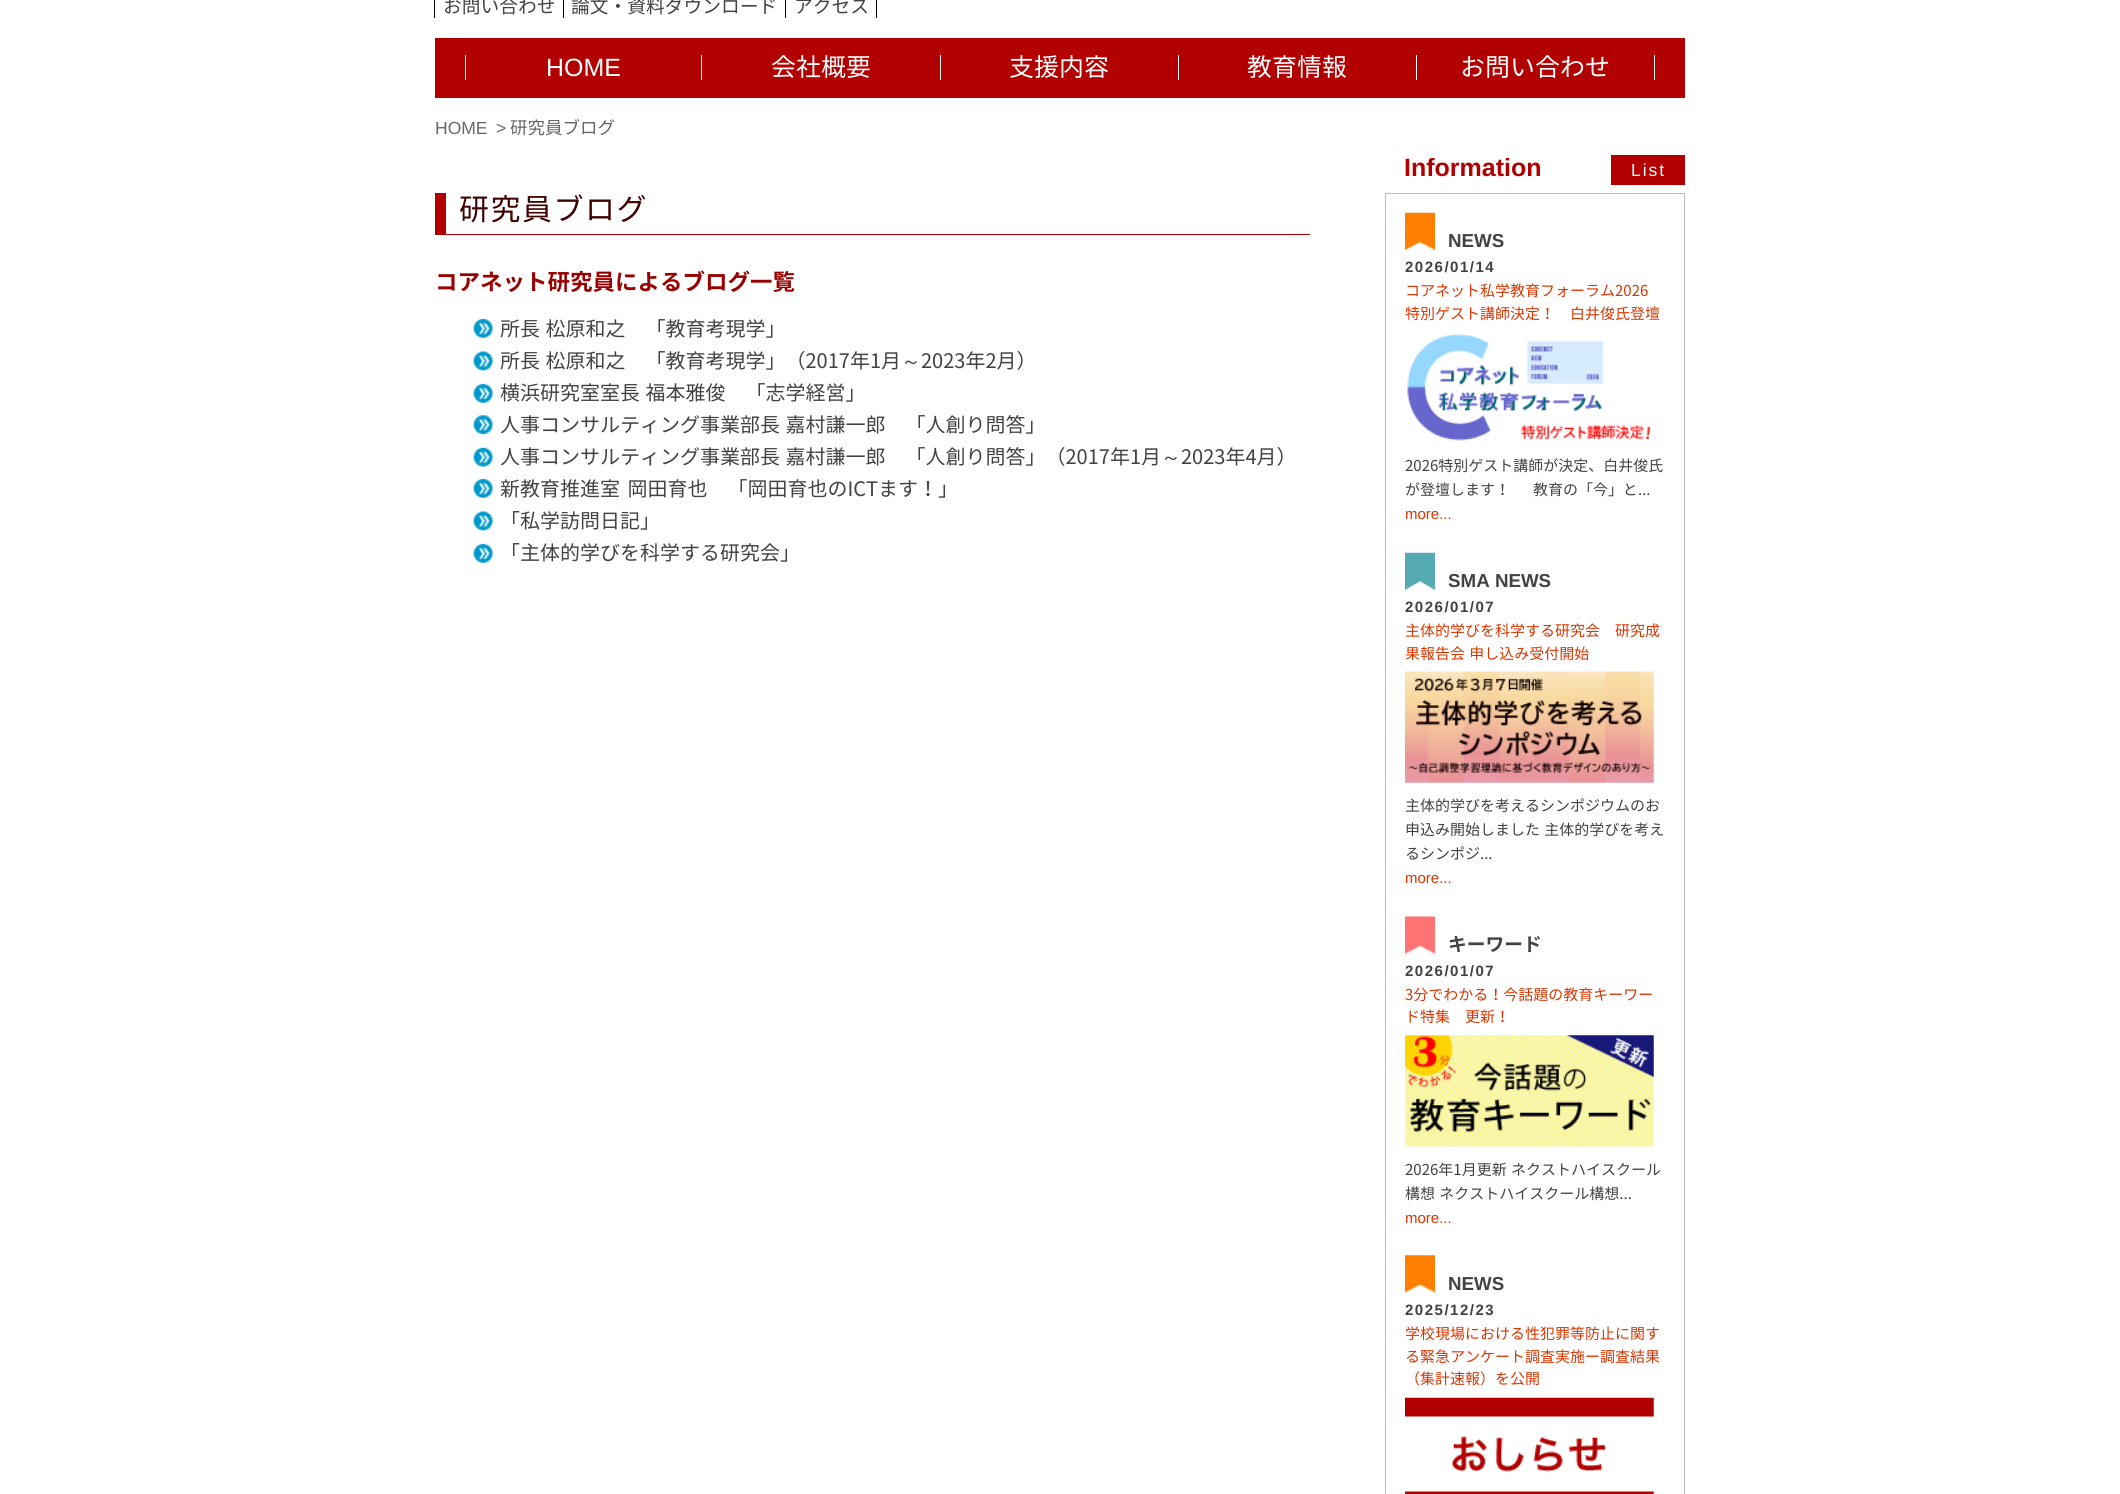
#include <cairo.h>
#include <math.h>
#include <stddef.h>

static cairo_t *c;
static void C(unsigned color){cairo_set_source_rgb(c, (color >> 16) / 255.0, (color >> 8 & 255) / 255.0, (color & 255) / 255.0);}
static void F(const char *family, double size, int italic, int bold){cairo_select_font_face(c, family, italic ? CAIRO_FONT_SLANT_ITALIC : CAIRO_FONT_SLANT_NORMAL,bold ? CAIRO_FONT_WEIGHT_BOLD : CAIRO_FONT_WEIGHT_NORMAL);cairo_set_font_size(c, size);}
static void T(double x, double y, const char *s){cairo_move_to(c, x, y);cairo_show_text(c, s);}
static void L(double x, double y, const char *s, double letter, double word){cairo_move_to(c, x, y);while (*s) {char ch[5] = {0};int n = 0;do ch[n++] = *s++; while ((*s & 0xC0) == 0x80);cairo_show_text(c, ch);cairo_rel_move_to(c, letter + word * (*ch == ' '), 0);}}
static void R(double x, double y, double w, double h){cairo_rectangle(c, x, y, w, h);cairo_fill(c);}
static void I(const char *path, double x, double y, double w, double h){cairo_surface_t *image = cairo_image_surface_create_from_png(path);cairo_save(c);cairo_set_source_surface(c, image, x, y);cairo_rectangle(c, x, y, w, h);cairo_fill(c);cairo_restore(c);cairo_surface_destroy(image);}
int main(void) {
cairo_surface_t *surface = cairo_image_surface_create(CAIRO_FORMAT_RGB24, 2120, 1494);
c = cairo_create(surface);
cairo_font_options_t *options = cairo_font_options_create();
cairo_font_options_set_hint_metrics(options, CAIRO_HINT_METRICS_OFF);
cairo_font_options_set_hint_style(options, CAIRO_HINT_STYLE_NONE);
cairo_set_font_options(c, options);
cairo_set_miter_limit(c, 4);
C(0xffffff);
cairo_paint(c);
C(0x000000);
R(563,0,1,18);
R(434,0,1,18);
F("Noto Sans JP",18.75,0,0);
C(0x414146);
T(443,13,"お問い合わせ");
C(0x000000);
R(785,0,1,18);
C(0x414146);
T(571,13,"論文・資料ダウンロード");
C(0x000000);
R(876,0,1,18);
C(0x414146);
T(794,13,"アクセス");
C(0xb20000);
R(435,38,1250,60);
C(0xffffff);
R(701,55,1,25);
R(465,55,1,25);
F("Liberation Sans",25,0,0);
T(546,76,"HOME");
R(940,55,1,25);
F("Noto Sans JP",25,0,0);
T(771,76,"会社概要");
R(1178,55,1,25);
T(1009,76,"支援内容");
R(1416,55,1,25);
T(1247,76,"教育情報");
R(1654,55,1,25);
T(1460,76,"お問い合わせ");
F("Liberation Sans",17.5,0,0);
C(0x666666);
T(435,134,"HOME");
T(496,134,">");
F("Noto Sans JP",17.5,0,0);
T(510,134,"研究員ブログ");
C(0xb20000);
R(446,234,864,1);
R(435,193,11,42);
F("Noto Sans JP",30,0,0);
C(0x3f0000);
L(459,220,"研究員ブログ",1.5,0);
F("Noto Sans JP",22.5,0,1);
C(0x990000);
T(435,290,"コアネット研究員によるブログ一覧");
I("1.png",473,318,20,20);
F("Noto Sans JP",20,0,0);
C(0x414146);
L(500,336,"所長 松原和之　「教育考現学」",0,1);
I("2.png",473,351,20,20);
L(500,368,"所長 松原和之　「教育考現学」（2017年1月",0,1);
F("WenQuanYi Zen Hei Medium",20,0,0);
T(901,368,"～");
F("Noto Sans JP",20,0,0);
T(921,368,"2023年2月）");
I("1.png",473,383,20,20);
L(500,400,"横浜研究室室長 福本雅俊　「志学経営」",0,1);
I("3.png",473,415,20,20);
L(500,432,"人事コンサルティング事業部長 嘉村謙一郎　「人創り問答」",0,1);
I("4.png",473,447,20,20);
L(500,464,"人事コンサルティング事業部長 嘉村謙一郎　「人創り問答」（2017年1月",0,1);
F("WenQuanYi Zen Hei Medium",20,0,0);
T(1161,464,"～");
F("Noto Sans JP",20,0,0);
T(1181,464,"2023年4月）");
I("5.png",473,478,20,20);
L(500,496,"新教育推進室 岡田育也　「岡田育也のICTます！」",0,3);
I("2.png",473,511,20,20);
T(500,528,"「私学訪問日記」");
I("1.png",473,543,20,20);
T(500,560,"「主体的学びを科学する研究会」");
F("Liberation Sans",25,0,1);
C(0xb20000);
T(1404,176,"Information");
R(1611,155,74,30);
F("Liberation Sans",17.5,0,0);
C(0xffffff);
L(1631,176,"List",2,0);
cairo_rectangle(c,1385.5,193.5,299,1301);
C(0xbbbbbb);
cairo_set_line_width(c,1);
cairo_stroke(c);
I("6.png",1405,212,30,39);
F("Liberation Sans",18.75,0,1);
C(0x414146);
T(1448,247,"NEWS");
F("Liberation Sans",15,0,1);
L(1405,272,"2026/01/14",1.5,0);
F("Noto Sans JP",15,0,0);
C(0xd83500);
T(1405,296,"コアネット私学教育フォーラム2026");
T(1405,319,"特別ゲスト講師決定！　白井俊氏登壇");
I("7.png",1407,334,244,107);
C(0x414146);
T(1405,471,"2026特別ゲスト講師が決定、白井俊氏");
T(1405,495,"が登壇します！");
T(1533,495,"教育の「今」と...");
F("Liberation Sans",15,0,0);
C(0xd83500);
T(1405,519,"more...");
I("8.png",1405,552,30,39);
F("Liberation Sans",18.75,0,1);
C(0x414146);
T(1448,587,"SMA NEWS");
F("Liberation Sans",15,0,1);
L(1405,612,"2026/01/07",1.5,0);
F("Noto Sans JP",15,0,0);
C(0xd83500);
T(1405,636,"主体的学びを科学する研究会　研究成");
L(1405,659,"果報告会 申し込み受付開始",0,1);
I("9.png",1405,671,249,112);
C(0x414146);
T(1405,811,"主体的学びを考えるシンポジウムのお");
L(1405,835,"申込み開始しました 主体的学びを考え",0,1);
T(1405,859,"るシンポジ...");
F("Liberation Sans",15,0,0);
C(0xd83500);
T(1405,883,"more...");
I("10.png",1405,916,30,38);
F("Noto Sans JP",18.75,0,1);
C(0x414146);
T(1448,951,"キーワード");
F("Liberation Sans",15,0,1);
L(1405,976,"2026/01/07",1.5,0);
F("Noto Sans JP",15,0,0);
C(0xd83500);
T(1405,1000,"3分でわかる！今話題の教育キーワー");
T(1405,1022,"ド特集　更新！");
I("11.png",1405,1035,249,112);
C(0x414146);
T(1405,1175,"2026年1月更新");
T(1511,1175,"ネクストハイスクール");
L(1405,1199,"構想 ネクストハイスクール構想...",0,1);
F("Liberation Sans",15,0,0);
C(0xd83500);
T(1405,1223,"more...");
I("12.png",1405,1255,30,38);
F("Liberation Sans",18.75,0,1);
C(0x414146);
T(1448,1290,"NEWS");
F("Liberation Sans",15,0,1);
L(1405,1315,"2025/12/23",1.5,0);
F("Noto Sans JP",15,0,0);
C(0xd83500);
T(1405,1339,"学校現場における性犯罪等防止に関す");
T(1405,1362,"る緊急アンケート調査実施ー調査結果");
T(1405,1384,"（集計速報）を公開");
I("13.png",1405,1397,249,97);
cairo_surface_write_to_png(surface, "o.png");
cairo_font_options_destroy(options);
cairo_destroy(c);
cairo_surface_destroy(surface);
return 0;
}
